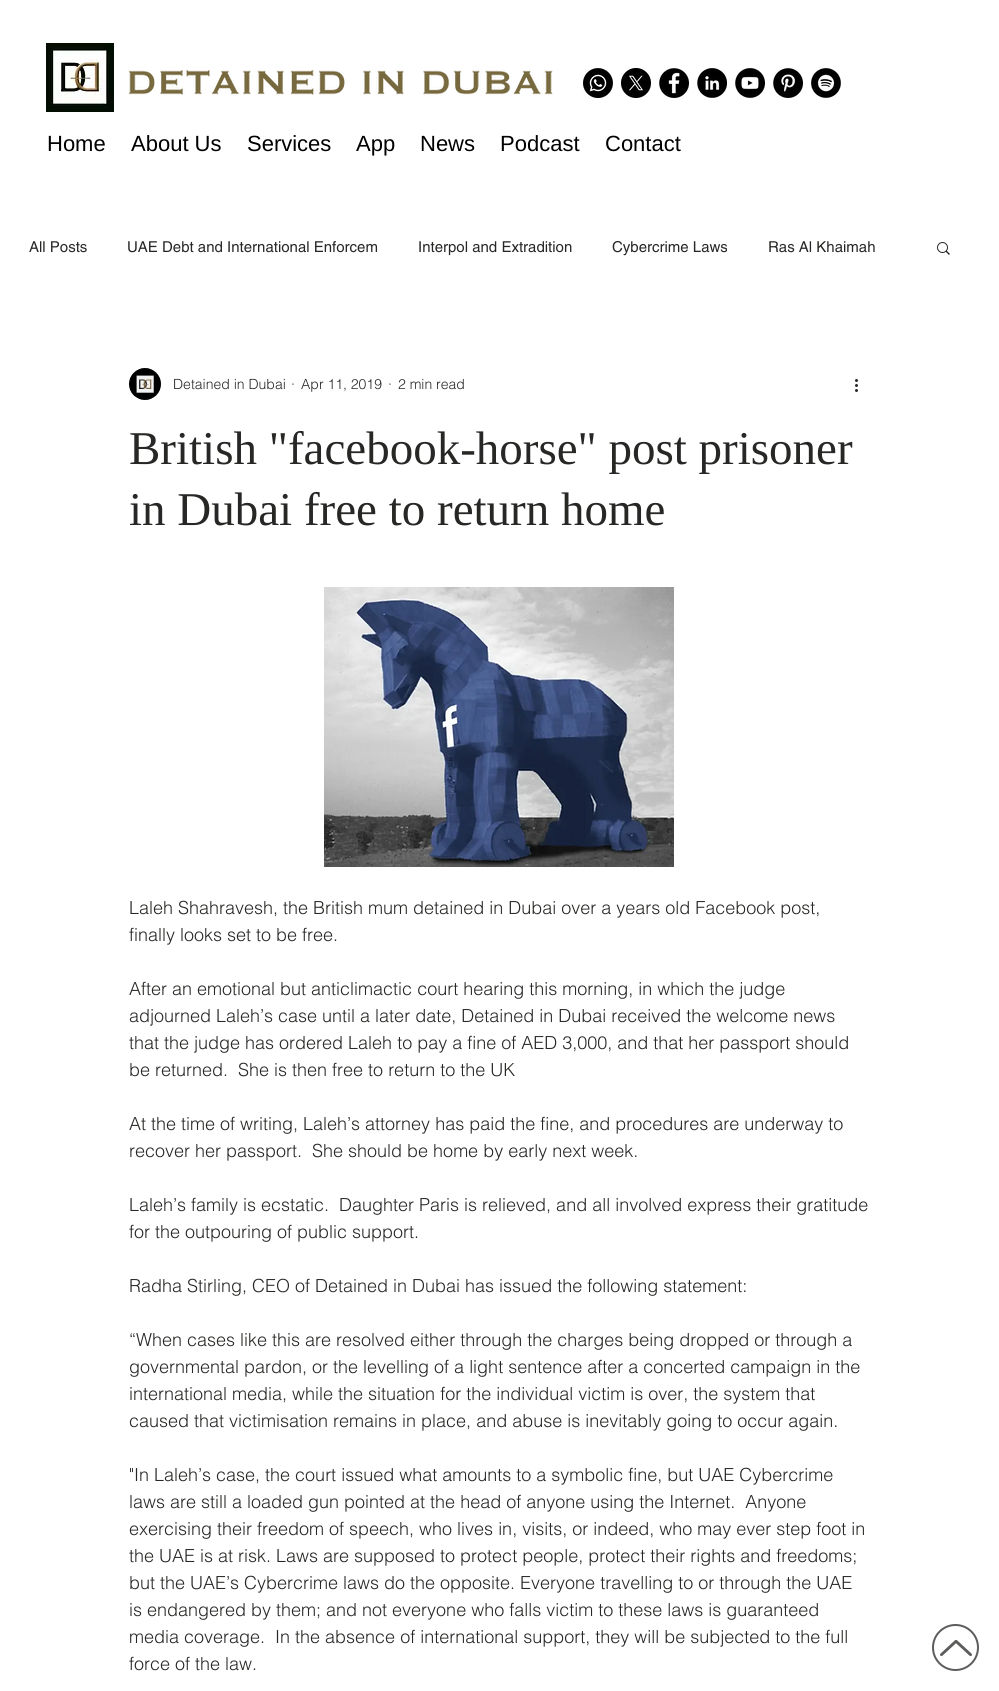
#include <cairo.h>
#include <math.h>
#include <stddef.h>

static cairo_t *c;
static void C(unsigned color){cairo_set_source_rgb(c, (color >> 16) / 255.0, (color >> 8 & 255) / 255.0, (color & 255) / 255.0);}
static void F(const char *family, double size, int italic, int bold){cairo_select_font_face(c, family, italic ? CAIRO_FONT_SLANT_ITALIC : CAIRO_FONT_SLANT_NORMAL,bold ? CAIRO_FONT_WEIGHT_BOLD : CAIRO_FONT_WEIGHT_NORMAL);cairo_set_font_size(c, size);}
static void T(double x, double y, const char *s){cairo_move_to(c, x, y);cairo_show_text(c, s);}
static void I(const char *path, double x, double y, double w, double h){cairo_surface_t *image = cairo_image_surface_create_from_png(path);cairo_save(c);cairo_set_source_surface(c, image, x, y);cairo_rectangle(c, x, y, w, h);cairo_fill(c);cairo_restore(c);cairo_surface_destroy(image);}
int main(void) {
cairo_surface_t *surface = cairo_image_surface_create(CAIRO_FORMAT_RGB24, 999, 1691);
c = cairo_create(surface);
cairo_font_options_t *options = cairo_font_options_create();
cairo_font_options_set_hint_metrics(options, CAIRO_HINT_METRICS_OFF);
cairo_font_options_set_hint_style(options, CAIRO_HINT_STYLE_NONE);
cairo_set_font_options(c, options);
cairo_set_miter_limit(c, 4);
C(0xffffff);
cairo_paint(c);
I("1.png",46,43,68,69);
I("2.png",128,69,425,26);
I("3.png",583,68,30,30);
I("4.png",621,68,30,30);
I("5.png",659,68,30,30);
I("6.png",697,68,30,30);
I("7.png",735,68,30,30);
I("8.png",773,68,30,30);
I("9.png",811,68,30,30);
F("Liberation Sans",22,0,0);
C(0x000000);
T(47,151,"Home");
T(131,151,"About Us");
T(247,151,"Services");
T(356,151,"App");
T(420,151,"News");
T(500,151,"Podcast");
T(605,151,"Contact");
F("helvetica",15,0,0);
C(0x272725);
T(29,252,"All Posts");
T(127,252,"UAE Debt and International Enforcem");
T(418,252,"Interpol and Extradition");
T(612,252,"Cybercrime Laws");
T(768,252,"Ras Al Khaimah");
I("10.png",937,242,13,13);
I("11.png",129,368,32,32);
F("helvetica Light",14,0,0);
T(173,389,"Detained in Dubai");
T(291,389,"·");
T(301,389,"Apr 11, 2019");
T(388,389,"·");
T(398,389,"2 min read");
I("12.png",855,379,3,13);
F("Liberation Serif",47,0,0);
T(129,464,"British \"facebook-horse\" post prisoner");
T(129,525,"in Dubai free to return home");
I("13.png",324,587,350,280);
F("helvetica Light",18,0,0);
T(129,914,"Laleh Shahravesh, the British mum detained in Dubai over a years old Facebook post,");
T(129,941,"finally looks set to be free.");
T(129,995,"After an emotional but anticlimactic court hearing this morning, in which the judge");
T(129,1022,"adjourned Laleh’s case until a later date, Detained in Dubai received the welcome news");
T(129,1049,"that the judge has ordered Laleh to pay a fine of AED 3,000, and that her passport should");
T(129,1076,"be returned.  She is then free to return to the UK");
T(129,1130,"At the time of writing, Laleh’s attorney has paid the fine, and procedures are underway to");
T(129,1157,"recover her passport.  She should be home by early next week.");
T(129,1211,"Laleh’s family is ecstatic.  Daughter Paris is relieved, and all involved express their gratitude");
T(129,1238,"for the outpouring of public support.");
T(129,1292,"Radha Stirling, CEO of Detained in Dubai has issued the following statement:");
T(129,1346,"“When cases like this are resolved either through the charges being dropped or through a");
T(129,1373,"governmental pardon, or the levelling of a light sentence after a concerted campaign in the");
T(129,1400,"international media, while the situation for the individual victim is over, the system that");
T(129,1427,"caused that victimisation remains in place, and abuse is inevitably going to occur again.");
T(129,1481,"\"In Laleh’s case, the court issued what amounts to a symbolic fine, but UAE Cybercrime");
T(129,1508,"laws are still a loaded gun pointed at the head of anyone using the Internet.  Anyone");
T(129,1535,"exercising their freedom of speech, who lives in, visits, or indeed, who may ever step foot in");
T(129,1562,"the UAE is at risk. Laws are supposed to protect people, protect their rights and freedoms;");
T(129,1589,"but the UAE’s Cybercrime laws do the opposite. Everyone travelling to or through the UAE");
T(129,1616,"is endangered by them; and not everyone who falls victim to these laws is guaranteed");
T(129,1643,"media coverage.  In the absence of international support, they will be subjected to the full");
T(129,1670,"force of the law.");
cairo_new_path(c);
cairo_arc(c,955.5,1647.5,22.5,0,2 * M_PI);
C(0x5d5d5c);
cairo_stroke(c);
I("14.png",940,1639,32,18);
cairo_surface_write_to_png(surface, "o.png");
cairo_font_options_destroy(options);
cairo_destroy(c);
cairo_surface_destroy(surface);
return 0;
}
